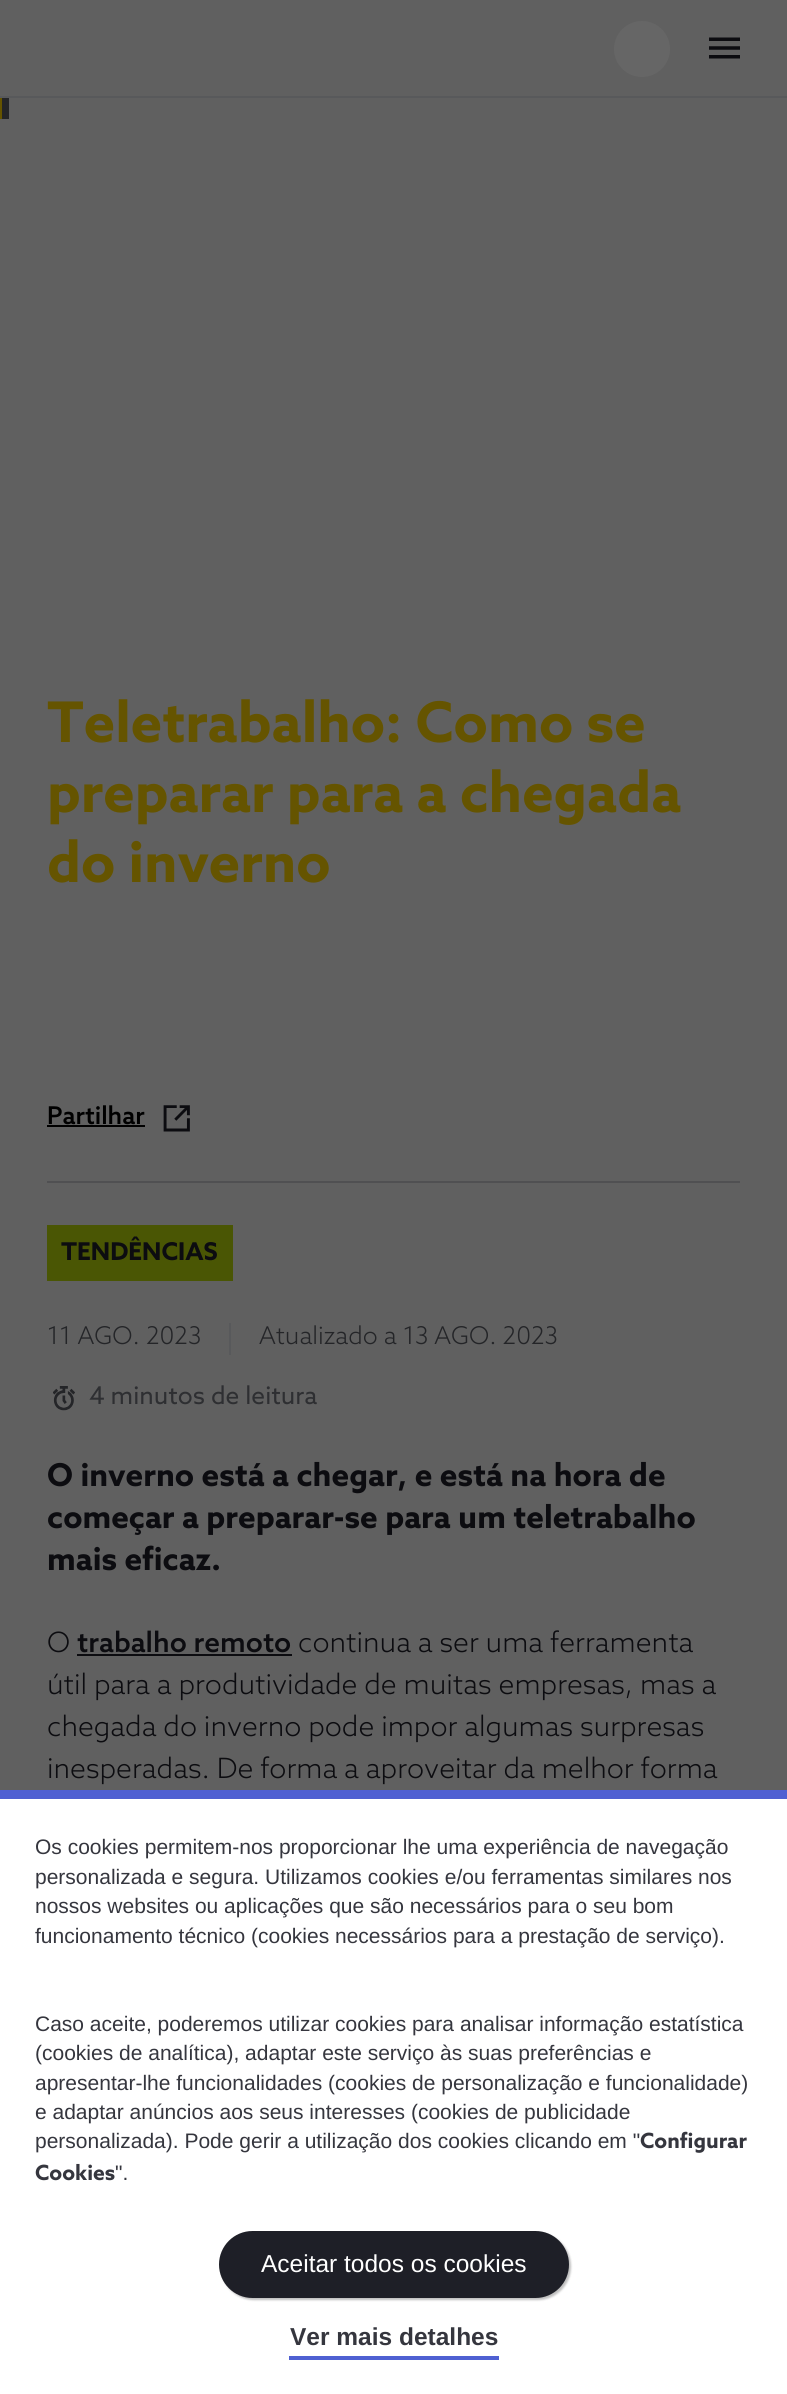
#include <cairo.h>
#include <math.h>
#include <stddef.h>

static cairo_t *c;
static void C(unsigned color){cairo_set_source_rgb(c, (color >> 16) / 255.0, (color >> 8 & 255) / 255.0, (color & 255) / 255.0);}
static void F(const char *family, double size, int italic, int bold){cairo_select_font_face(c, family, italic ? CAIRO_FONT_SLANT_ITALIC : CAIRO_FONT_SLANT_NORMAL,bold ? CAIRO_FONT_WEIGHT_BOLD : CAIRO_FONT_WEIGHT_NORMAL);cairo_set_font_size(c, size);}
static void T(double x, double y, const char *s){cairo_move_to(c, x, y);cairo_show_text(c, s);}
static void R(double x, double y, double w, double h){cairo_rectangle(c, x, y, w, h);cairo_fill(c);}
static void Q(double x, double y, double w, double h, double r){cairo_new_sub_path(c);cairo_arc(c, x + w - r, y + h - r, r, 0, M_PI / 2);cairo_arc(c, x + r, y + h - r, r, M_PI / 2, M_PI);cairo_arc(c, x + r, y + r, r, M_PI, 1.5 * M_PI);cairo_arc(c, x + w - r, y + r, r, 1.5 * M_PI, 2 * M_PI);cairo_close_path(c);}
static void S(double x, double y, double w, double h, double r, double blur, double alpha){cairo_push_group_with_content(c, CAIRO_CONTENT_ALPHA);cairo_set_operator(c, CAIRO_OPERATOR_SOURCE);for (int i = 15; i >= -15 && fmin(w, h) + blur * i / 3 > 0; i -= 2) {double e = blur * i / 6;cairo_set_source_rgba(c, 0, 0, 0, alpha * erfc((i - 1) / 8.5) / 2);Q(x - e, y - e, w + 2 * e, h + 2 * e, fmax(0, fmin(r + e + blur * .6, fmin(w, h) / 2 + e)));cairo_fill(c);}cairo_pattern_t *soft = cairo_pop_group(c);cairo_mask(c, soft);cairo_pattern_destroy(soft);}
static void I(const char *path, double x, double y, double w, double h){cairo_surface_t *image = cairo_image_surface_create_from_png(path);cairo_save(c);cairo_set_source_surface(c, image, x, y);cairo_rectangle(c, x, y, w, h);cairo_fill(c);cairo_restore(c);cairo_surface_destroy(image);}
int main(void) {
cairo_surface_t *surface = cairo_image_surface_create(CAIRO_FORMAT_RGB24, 787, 2394);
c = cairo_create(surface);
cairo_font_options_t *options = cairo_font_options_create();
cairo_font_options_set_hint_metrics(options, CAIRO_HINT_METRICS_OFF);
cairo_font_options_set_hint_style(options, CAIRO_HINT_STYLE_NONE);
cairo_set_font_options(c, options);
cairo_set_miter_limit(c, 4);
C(0x606060);
cairo_paint(c);
C(0x58595b);
R(0,96,787,2);
C(0x666666);
cairo_arc(c,642,49,28,0,2 * M_PI);
cairo_fill(c);
I("1.png",709,37,31,22);
C(0x655400);
R(0,98,2,21);
C(0x242528);
R(2,98,7,21);
F("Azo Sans",56,0,1);
C(0x655400);
T(47,742,"Teletrabalho: Como se");
T(47,812,"preparar para a chegada");
T(47,882,"do inverno");
F("Azo Sans Medium",24.5,0,0);
C(0x000000);
T(47,1124,"Partilhar");
R(47,1125,98,2);
I("2.png",163,1105,27,27);
C(0x505052);
R(47,1181,693,2);
C(0x4a5604);
R(47,1225,186,56);
F("Azo Sans",24.5,0,1);
C(0x0c0c10);
T(61,1260,"TENDÊNCIAS");
C(0x58595b);
R(229,1323,2,32);
F("Azo Sans Light",24.5,0,0);
C(0x242528);
T(47,1344,"11 AGO. 2023");
T(259,1344,"Atualizado a 13 AGO. 2023");
I("3.png",53,1386,22,25);
F("Azo Sans",24.5,0,0);
C(0x2e2f32);
T(89,1404,"4 minutos de leitura");
F("Azo Sans",31.5,0,1);
C(0x0c0c10);
T(47,1486,"O inverno está a chegar, e está na hora de");
T(47,1528,"começar a preparar-se para um teletrabalho");
T(47,1570,"mais eficaz.");
F("Azo Sans Light",28,0,0);
T(47,1652,"O");
F("Azo Sans Medium",28,0,0);
T(77,1652,"trabalho remoto");
R(77,1654,215,2);
F("Azo Sans Light",28,0,0);
T(298,1652,"continua a ser uma ferramenta");
T(47,1694,"útil para a produtividade de muitas empresas, mas a");
T(47,1736,"chegada do inverno pode impor algumas surpresas");
T(47,1778,"inesperadas. De forma a aproveitar da melhor forma");
C(0xffffff);
R(0,1799,787,595);
C(0x4f60d2);
R(0,1790,787,9);
F("Liberation Sans",21,0,0);
C(0x35363e);
T(35,1854,"Os cookies permitem-nos proporcionar lhe uma experiência de navegação");
T(35,1884,"personalizada e segura. Utilizamos cookies e/ou ferramentas similares nos");
T(35,1913,"nossos websites ou aplicações que são necessários para o seu bom");
T(35,1943,"funcionamento técnico (cookies necessários para a prestação de serviço).");
T(35,2031,"Caso aceite, poderemos utilizar cookies para analisar informação estatística");
T(35,2060,"(cookies de analítica), adaptar este serviço às suas preferências e");
T(35,2090,"apresentar-lhe funcionalidades (cookies de personalização e funcionalidade)");
T(35,2119,"e adaptar anúncios aos seus interesses (cookies de publicidade");
T(35,2148,"personalizada). Pode gerir a utilização dos cookies clicando em \"");
F("Azo Sans",21,0,1);
T(640,2148,"Configurar");
T(35,2180,"Cookies");
F("Liberation Sans",21,0,0);
T(115,2180,"\".");
C(0x000000);
S(221,2233,350,67,33.5,1,.25);
C(0x1e1f27);
Q(219,2231,350,67,33.5);
cairo_fill(c);
F("Liberation Sans",24.5,0,0);
C(0xffffff);
T(261,2272,"Aceitar todos os cookies");
C(0x4f60d2);
R(289,2356,210,4);
F("Liberation Sans",24.5,0,1);
C(0x35363e);
T(290,2345,"Ver mais detalhes");
cairo_surface_write_to_png(surface, "o.png");
cairo_font_options_destroy(options);
cairo_destroy(c);
cairo_surface_destroy(surface);
return 0;
}
